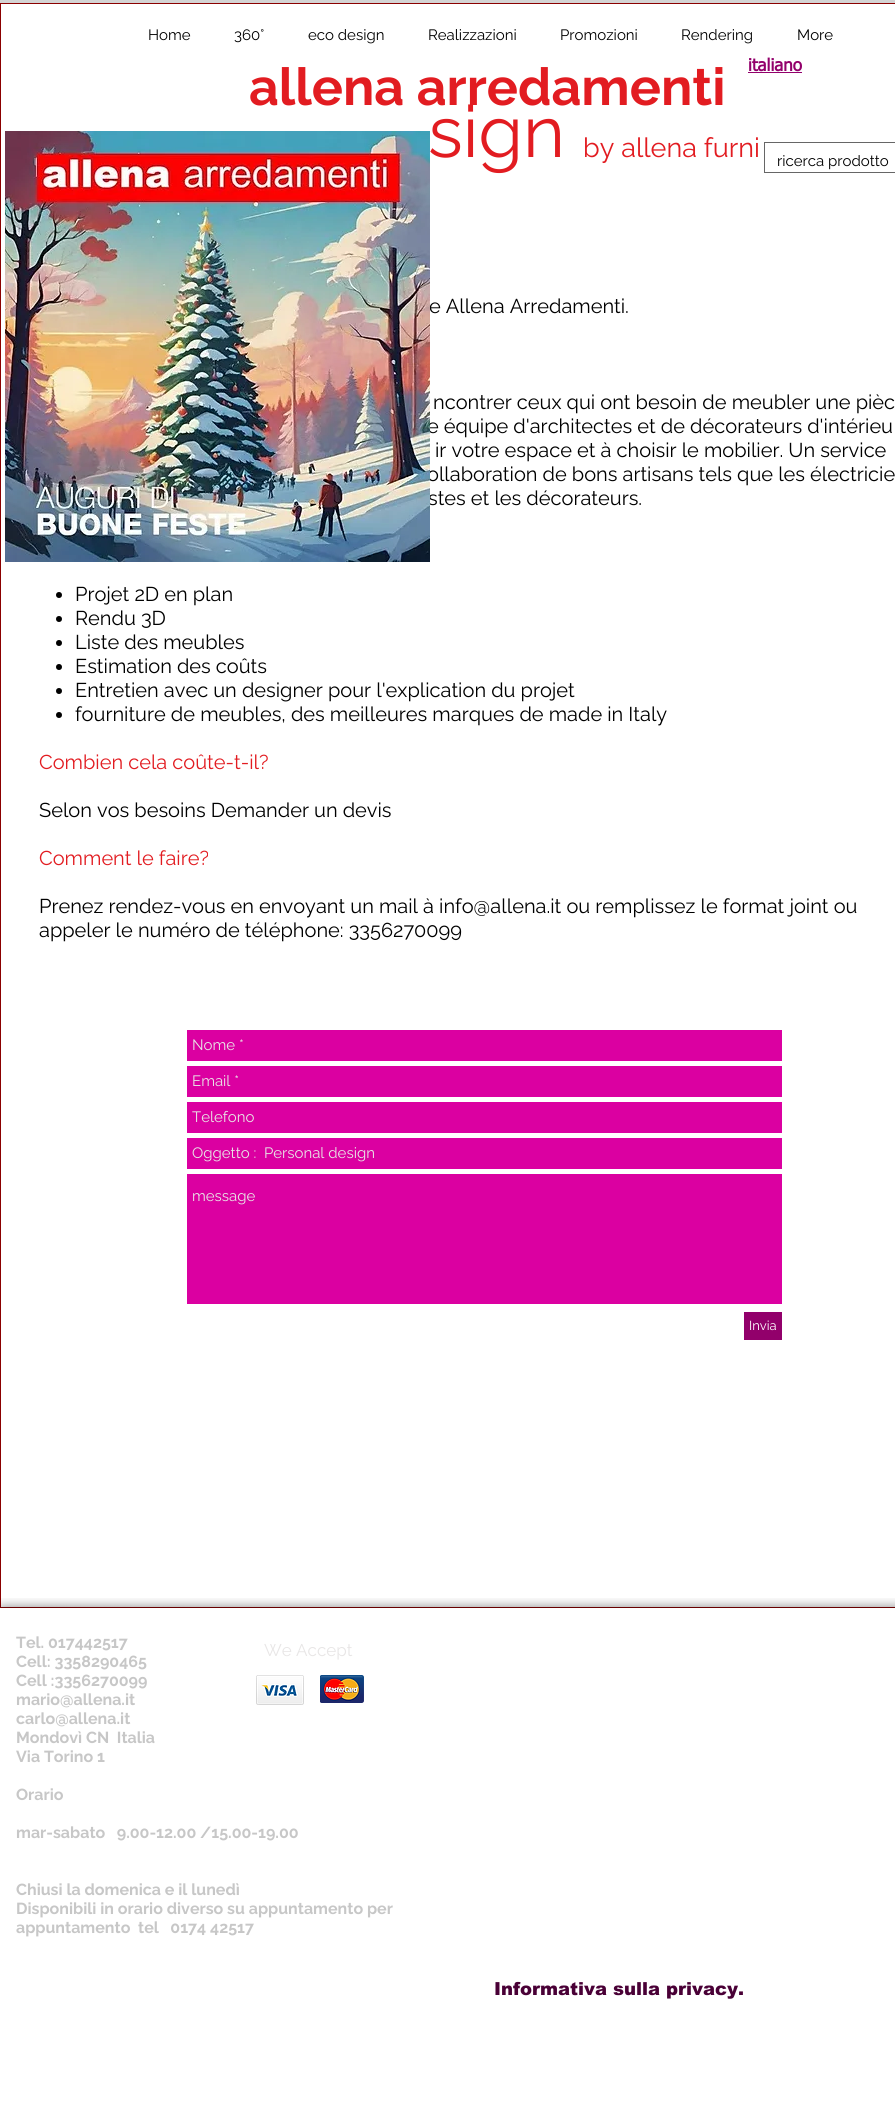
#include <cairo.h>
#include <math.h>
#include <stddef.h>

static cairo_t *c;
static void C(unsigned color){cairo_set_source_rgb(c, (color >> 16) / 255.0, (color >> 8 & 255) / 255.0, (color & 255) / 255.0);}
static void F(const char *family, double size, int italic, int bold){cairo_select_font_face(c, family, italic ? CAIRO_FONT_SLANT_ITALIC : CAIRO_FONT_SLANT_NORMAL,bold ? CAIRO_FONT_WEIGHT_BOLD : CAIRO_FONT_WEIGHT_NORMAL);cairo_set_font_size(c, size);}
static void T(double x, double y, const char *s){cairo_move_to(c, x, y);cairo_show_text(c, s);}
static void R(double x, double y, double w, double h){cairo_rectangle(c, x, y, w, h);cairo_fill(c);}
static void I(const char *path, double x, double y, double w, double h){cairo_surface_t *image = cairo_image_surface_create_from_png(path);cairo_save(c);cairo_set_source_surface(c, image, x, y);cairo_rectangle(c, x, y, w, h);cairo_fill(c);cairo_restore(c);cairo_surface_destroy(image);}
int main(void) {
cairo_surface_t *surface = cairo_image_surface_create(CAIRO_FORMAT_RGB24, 895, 2106);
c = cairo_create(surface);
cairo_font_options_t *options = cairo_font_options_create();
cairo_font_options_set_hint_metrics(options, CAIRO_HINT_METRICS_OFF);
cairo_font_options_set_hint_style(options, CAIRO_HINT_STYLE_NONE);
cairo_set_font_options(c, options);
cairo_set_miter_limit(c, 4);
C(0xd4d4d4);
cairo_paint(c);
C(0xffffff);
cairo_rectangle(c,.5,3.5,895,1604);
cairo_fill_preserve(c);
C(0x8b0000);
cairo_set_line_width(c,1);
cairo_stroke(c);
F("Raleway",15,0,0);
C(0x000000);
T(148,40,"Home");
T(234,40,"360°");
T(308,40,"eco design");
T(428,40,"Realizzazioni");
T(560,40,"Promozioni");
T(681,40,"Rendering");
T(797,40,"More");
F("Raleway",52,0,1);
C(0xe21c21);
T(249,105,"allena arredamenti");
F("Raleway",20,0,0);
C(0x000000);
T(429,313,"e Allena Arredamenti.");
T(427,433,"e équipe d'architectes et de décorateurs d'intérieu");
T(427,481,"ollaboration de bons artisans tels que les électricie");
T(428,505,"stes et les décorateurs.");
I("1.png",5,131,425,431);
cairo_rectangle(c,764.5,142.5,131,30);
cairo_set_source_rgba(c,0,0,0,0.6);
cairo_stroke(c);
F("Raleway",15,0,0);
C(0x000000);
T(777,166,"ricerca prodotto");
F("tahoma",17,0,1);
C(0x92006b);
T(748,71,"italiano");
R(748,72,54,1);
F("Raleway",72,0,0);
C(0xe21c21);
T(428,157,"sign");
F("Raleway",27,0,0);
T(583,157,"by allena furni");
F("Raleway",20,0,0);
C(0x000000);
T(433,409,"ncontrer ceux qui ont besoin de meubler une pièc");
T(435,457,"ir votre espace et à choisir le mobilier. Un service");
cairo_new_path(c);
cairo_arc(c,59,595,3,0,2 * M_PI);
cairo_fill(c);
T(75,601,"Projet 2D en plan");
cairo_new_path(c);
cairo_arc(c,59,619,3,0,2 * M_PI);
cairo_fill(c);
T(75,625,"Rendu 3D");
cairo_new_path(c);
cairo_arc(c,59,643,3,0,2 * M_PI);
cairo_fill(c);
T(75,649,"Liste des meubles");
cairo_new_path(c);
cairo_arc(c,59,667,3,0,2 * M_PI);
cairo_fill(c);
T(75,673,"Estimation des coûts");
cairo_new_path(c);
cairo_arc(c,59,691,3,0,2 * M_PI);
cairo_fill(c);
T(75,697,"Entretien avec un designer pour l'explication du projet");
cairo_new_path(c);
cairo_arc(c,59,715,3,0,2 * M_PI);
cairo_fill(c);
T(75,721,"fourniture de meubles, des meilleures marques de made in Italy");
C(0xe21c21);
T(39,769,"Combien cela coûte-t-il?");
C(0x000000);
T(39,817,"Selon vos besoins Demander un devis");
C(0xe21c21);
T(39,865,"Comment le faire?");
C(0x000000);
T(39,913,"Prenez rendez-vous en envoyant un mail à info@allena.it ou remplissez le format joint ou");
T(39,937,"appeler le numéro de téléphone: 3356270099");
C(0xdb00a1);
R(187,1030,595,31);
F("Raleway",15,0,0);
C(0xe8e6e6);
T(192,1050,"Nome *");
C(0xdb00a1);
R(187,1066,595,31);
C(0xe8e6e6);
T(192,1086,"Email *");
C(0xdb00a1);
R(187,1102,595,31);
C(0xe8e6e6);
T(192,1122,"Telefono");
C(0xdb00a1);
R(187,1138,595,31);
C(0xe8e6e6);
T(192,1158,"Oggetto :  Personal design");
C(0xdb00a1);
R(187,1174,595,130);
C(0xe8e6e6);
T(192,1201,"message");
C(0x92006b);
R(744,1312,38,28);
F("Raleway",13,0,0);
C(0xffffff);
T(749,1330,"Invia");
I("2.png",0,1598,35,10);
I("3.png",35,1598,860,10);
R(0,1608,895,498);
F("Raleway",16,0,1);
C(0xc7c7c7);
T(16,1648,"Tel. 017442517");
T(16,1667,"Cell: 3358290465");
T(16,1686,"Cell :3356270099");
T(16,1705,"mario@allena.it");
T(16,1724,"carlo@allena.it");
T(16,1743,"Mondovì CN  Italia");
T(16,1762,"Via Torino 1");
T(16,1800,"Orario");
T(16,1838,"mar-sabato   9.00-12.00 /15.00-19.00");
T(16,1895,"Chiusi la domenica e il lunedì");
T(16,1914,"Disponibili in orario diverso su appuntamento per");
T(16,1933,"appuntamento  tel   0174 42517");
F("Raleway",17,0,0);
C(0xe8e6e6);
T(264,1656,"We Accept");
I("4.png",256,1675,48,30);
I("5.png",320,1675,44,28);
F("arial Black",18,0,0);
C(0x490036);
T(494,1995,"Informativa sulla privacy.");
cairo_surface_write_to_png(surface, "o.png");
cairo_font_options_destroy(options);
cairo_destroy(c);
cairo_surface_destroy(surface);
return 0;
}
